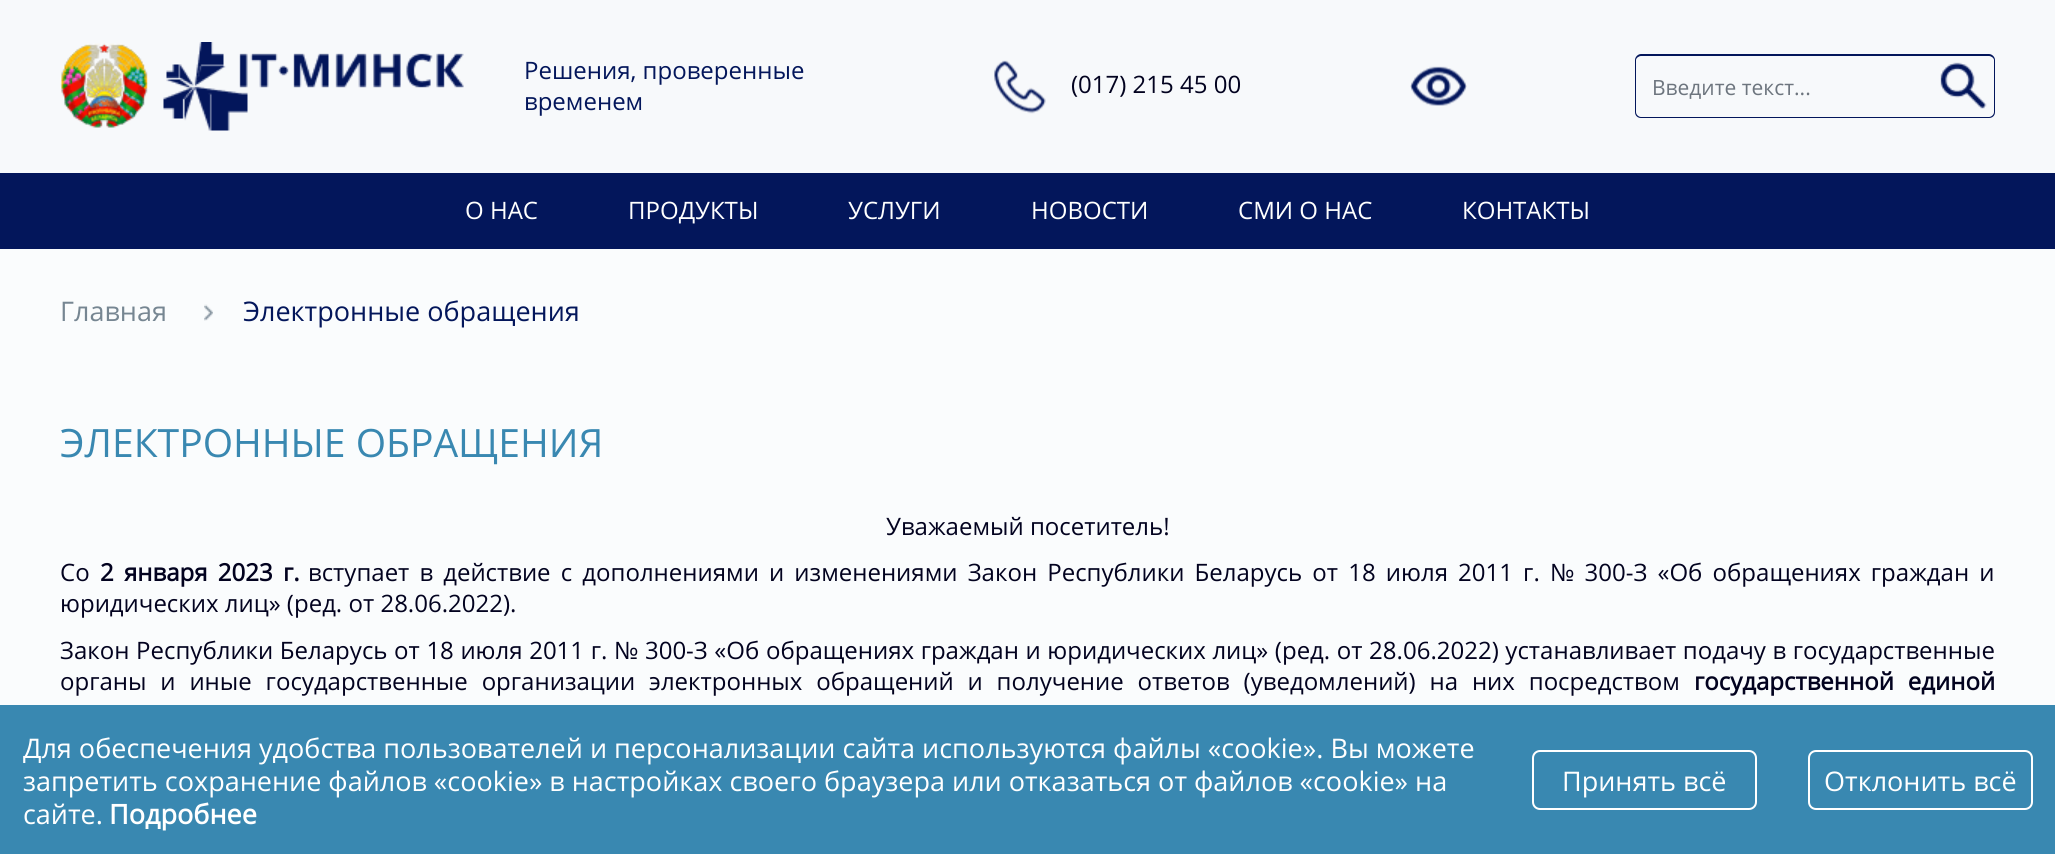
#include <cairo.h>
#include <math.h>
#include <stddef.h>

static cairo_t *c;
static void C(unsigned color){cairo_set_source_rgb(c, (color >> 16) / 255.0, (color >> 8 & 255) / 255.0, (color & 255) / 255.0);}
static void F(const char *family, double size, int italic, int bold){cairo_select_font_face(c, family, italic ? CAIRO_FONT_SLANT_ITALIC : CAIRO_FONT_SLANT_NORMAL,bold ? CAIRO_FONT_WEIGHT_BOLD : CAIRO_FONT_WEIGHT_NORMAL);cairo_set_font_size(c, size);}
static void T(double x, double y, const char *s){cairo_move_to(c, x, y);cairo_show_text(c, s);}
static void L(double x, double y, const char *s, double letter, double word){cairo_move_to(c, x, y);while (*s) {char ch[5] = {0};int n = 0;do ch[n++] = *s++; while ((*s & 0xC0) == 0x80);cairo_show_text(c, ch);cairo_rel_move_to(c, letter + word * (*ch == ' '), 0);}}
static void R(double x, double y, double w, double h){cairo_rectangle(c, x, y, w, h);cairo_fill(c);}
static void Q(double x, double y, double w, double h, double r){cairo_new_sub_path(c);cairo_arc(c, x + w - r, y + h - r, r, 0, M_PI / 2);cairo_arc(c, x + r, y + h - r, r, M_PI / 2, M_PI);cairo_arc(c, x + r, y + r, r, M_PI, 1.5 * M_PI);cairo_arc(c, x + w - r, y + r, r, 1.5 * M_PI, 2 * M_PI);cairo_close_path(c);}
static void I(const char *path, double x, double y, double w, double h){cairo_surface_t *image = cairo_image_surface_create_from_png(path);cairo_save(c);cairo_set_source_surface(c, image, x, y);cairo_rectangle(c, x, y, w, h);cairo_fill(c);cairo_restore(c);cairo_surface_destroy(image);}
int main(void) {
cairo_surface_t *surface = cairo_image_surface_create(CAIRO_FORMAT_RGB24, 2055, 854);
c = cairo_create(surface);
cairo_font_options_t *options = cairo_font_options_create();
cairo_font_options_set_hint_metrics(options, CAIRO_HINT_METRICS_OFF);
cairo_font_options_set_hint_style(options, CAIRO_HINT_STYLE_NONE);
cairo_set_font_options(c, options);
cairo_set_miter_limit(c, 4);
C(0xfafcfd);
cairo_paint(c);
C(0xf7f9fb);
R(0,0,2055,173);
I("1.png",60,43,89,85);
I("2.png",163,42,301,89);
F("Open Sans",24,0,0);
C(0x03165b);
T(524,79,"Решения, проверенные");
T(524,110,"временем");
I("3.png",994,60,52,54);
C(0x02021f);
T(1071,93,"(017) 215 45 00");
I("4.png",1410,66,57,40);
C(0x03165b);
cairo_set_fill_rule(c,CAIRO_FILL_RULE_EVEN_ODD);
cairo_new_path(c);
cairo_move_to(c,1641,54);
cairo_line_to(c,1935,54);
cairo_line_to(c,1935,118);
cairo_line_to(c,1641,118);
cairo_curve_to(c,1638,118,1635,116,1635,112);
cairo_line_to(c,1635,60);
cairo_curve_to(c,1635,57,1638,54,1641,54);
cairo_close_path(c);
cairo_move_to(c,1641,56);
cairo_line_to(c,1935,56);
cairo_line_to(c,1935,117);
cairo_line_to(c,1641,117);
cairo_curve_to(c,1639,117,1636,115,1636,112);
cairo_line_to(c,1636,60);
cairo_curve_to(c,1636,58,1639,56,1641,56);
cairo_close_path(c);
cairo_fill(c);
F("Open Sans",21,0,0);
C(0x6d757e);
T(1652,95,"Введите текст...");
C(0x03165b);
cairo_new_path(c);
cairo_move_to(c,1934,54);
cairo_line_to(c,1989,54);
cairo_curve_to(c,1992,54,1995,57,1995,60);
cairo_line_to(c,1995,112);
cairo_curve_to(c,1995,116,1992,118,1989,118);
cairo_line_to(c,1934,118);
cairo_close_path(c);
cairo_move_to(c,1934,56);
cairo_line_to(c,1989,56);
cairo_curve_to(c,1991,56,1994,58,1994,60);
cairo_line_to(c,1994,112);
cairo_curve_to(c,1994,115,1991,117,1989,117);
cairo_line_to(c,1934,117);
cairo_close_path(c);
cairo_fill(c);
I("5.png",1940,62,47,47);
R(0,173,2055,76);
F("Open Sans",24,0,0);
C(0xffffff);
T(465,219,"О НАС");
T(628,219,"ПРОДУКТЫ");
T(848,219,"УСЛУГИ");
T(1031,219,"НОВОСТИ");
T(1238,219,"СМИ О НАС");
T(1462,219,"КОНТАКТЫ");
F("Open Sans",27,0,0);
C(0x768692);
T(60,321,"Главная");
I("6.png",204,304,9,17);
C(0x03165b);
T(243,321,"Электронные обращения");
F("Open Sans",39,0,0);
C(0x3988b1);
T(60,457,"ЭЛЕКТРОННЫЕ ОБРАЩЕНИЯ");
F("Open Sans",24,0,0);
C(0x02021f);
T(886,535,"Уважаемый посетитель!");
T(60,581,"Со");
F("Open Sans",24,0,1);
L(100,581,"2 января 2023 г.",0,4);
F("Open Sans",24,0,0);
L(308,581,"вступает в действие с дополнениями и изменениями Закон Республики Беларусь от 18 июля 2011 г. № 300-З «Об обращениях граждан и",0,3.9);
T(60,612,"юридических лиц» (ред. от 28.06.2022).");
L(60,659,"Закон Республики Беларусь от 18 июля 2011 г. № 300-З «Об обращениях граждан и юридических лиц» (ред. от 28.06.2022) устанавливает подачу в государственные",0,.35);
L(60,690,"органы и иные государственные организации электронных обращений и получение ответов (уведомлений) на них посредством",0,7.6);
F("Open Sans",24,0,1);
L(1694,690,"государственной единой",0,7.6);
C(0x3988b1);
R(0,705,2055,149);
F("Open Sans",27,0,0);
C(0xffffff);
T(23,758,"Для обеспечения удобства пользователей и персонализации сайта используются файлы «cookie». Вы можете");
T(23,791,"запретить сохранение файлов «cookie» в настройках своего браузера или отказаться от файлов «cookie» на");
T(23,824,"сайте.");
F("Open Sans",27,0,1);
T(109,824,"Подробнее");
Q(1533,751,223,58,7);
cairo_stroke(c);
F("Open Sans",27,0,0);
T(1562,791,"Принять всё");
Q(1809,751,223,58,7);
cairo_stroke(c);
T(1824,791,"Отклонить всё");
cairo_surface_write_to_png(surface, "o.png");
cairo_font_options_destroy(options);
cairo_destroy(c);
cairo_surface_destroy(surface);
return 0;
}
